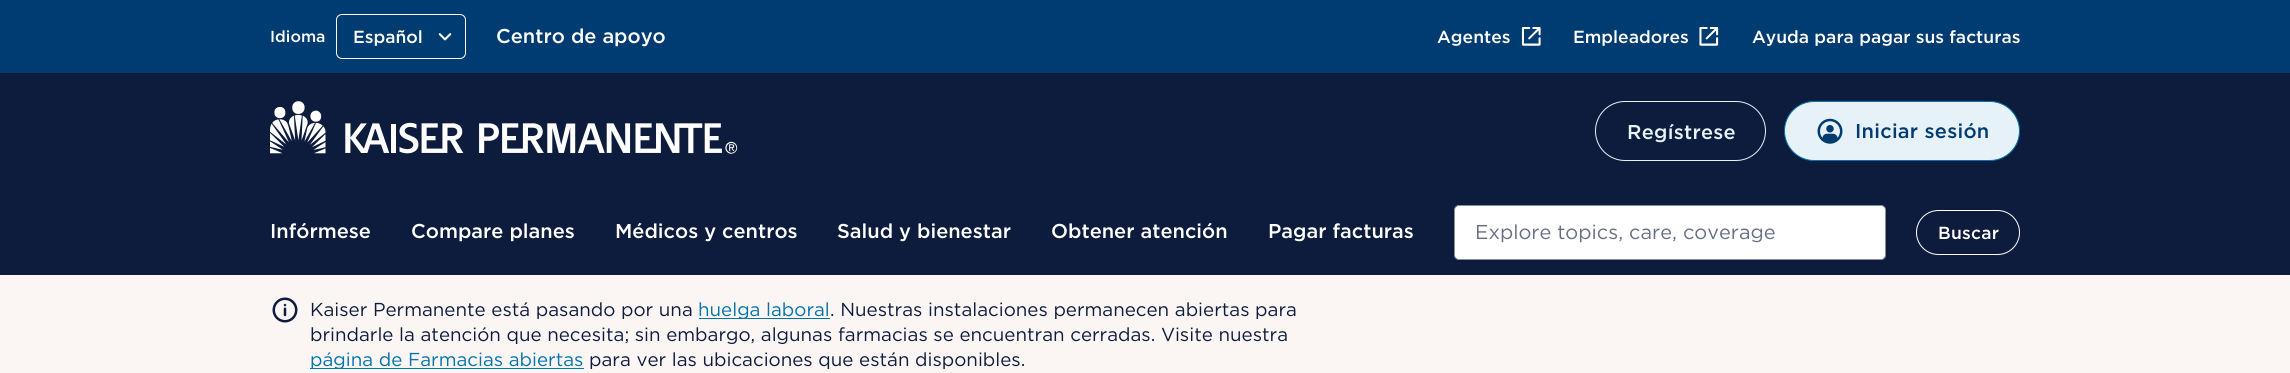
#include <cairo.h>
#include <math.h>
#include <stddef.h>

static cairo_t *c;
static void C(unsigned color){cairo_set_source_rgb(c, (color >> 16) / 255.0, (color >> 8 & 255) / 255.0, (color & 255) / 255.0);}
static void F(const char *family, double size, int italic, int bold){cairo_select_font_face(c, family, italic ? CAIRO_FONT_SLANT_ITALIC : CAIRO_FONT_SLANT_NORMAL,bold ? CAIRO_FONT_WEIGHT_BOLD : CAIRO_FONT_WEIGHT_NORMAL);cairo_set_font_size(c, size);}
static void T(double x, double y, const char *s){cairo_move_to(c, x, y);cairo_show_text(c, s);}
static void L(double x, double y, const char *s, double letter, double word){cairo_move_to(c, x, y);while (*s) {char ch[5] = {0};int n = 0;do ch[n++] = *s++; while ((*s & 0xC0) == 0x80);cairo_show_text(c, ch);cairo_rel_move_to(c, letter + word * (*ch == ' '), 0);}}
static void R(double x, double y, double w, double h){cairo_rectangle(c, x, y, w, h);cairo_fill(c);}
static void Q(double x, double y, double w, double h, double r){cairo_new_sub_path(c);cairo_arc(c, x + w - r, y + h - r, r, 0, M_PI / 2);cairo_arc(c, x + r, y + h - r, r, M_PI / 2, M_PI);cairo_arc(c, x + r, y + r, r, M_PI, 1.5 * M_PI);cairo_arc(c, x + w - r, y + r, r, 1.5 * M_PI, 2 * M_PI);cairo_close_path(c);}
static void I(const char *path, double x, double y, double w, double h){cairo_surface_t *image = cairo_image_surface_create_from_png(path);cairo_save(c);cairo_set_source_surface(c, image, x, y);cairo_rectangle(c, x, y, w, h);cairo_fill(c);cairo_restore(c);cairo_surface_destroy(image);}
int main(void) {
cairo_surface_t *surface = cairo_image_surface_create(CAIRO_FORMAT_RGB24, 2290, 373);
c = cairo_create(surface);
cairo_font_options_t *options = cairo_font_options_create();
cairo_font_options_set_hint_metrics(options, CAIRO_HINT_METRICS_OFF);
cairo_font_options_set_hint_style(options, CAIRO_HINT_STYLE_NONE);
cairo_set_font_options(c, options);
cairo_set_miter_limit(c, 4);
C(0xfbf5f4);
cairo_paint(c);
C(0x003b71);
R(0,0,2290,73);
F("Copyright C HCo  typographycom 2 Light",16,0,0);
C(0xffffff);
T(270,42,"Idioma");
Q(336.5,14.5,129,44,5.5);
cairo_set_line_width(c,1);
cairo_stroke(c);
F("Copyright C HCo  typographycom 2 Light",17.5,0,0);
T(353,43,"Español");
I("1.png",438,33,14,8);
F("Copyright C HCo  typographycom 2 Light",20,0,0);
T(496,43,"Centro de apoyo");
F("Copyright C HCo  typographycom 2 Light",17.5,0,0);
T(1437,43,"Agentes");
I("2.png",1521,27,20,19);
T(1573,43,"Empleadores");
I("3.png",1699,27,20,19);
T(1752,43,"Ayuda para pagar sus facturas");
C(0x0d1c3d);
R(0,73,2290,202);
I("4.png",270,101,468,53);
Q(1595.5,101.5,170,59,29.5);
C(0xe6f2f7);
cairo_stroke(c);
F("Copyright C HCo  typographycom 2 Light",20,0,0);
L(1627,139,"Regístrese",.25,0);
Q(1784.5,101.5,235,59,29.5);
cairo_fill_preserve(c);
C(0x0074ad);
cairo_stroke(c);
I("5.png",1817,118,26,26);
C(0x003b71);
L(1855,138,"Iniciar sesión",.25,0);
C(0xffffff);
T(270,238,"Infórmese");
T(411,238,"Compare planes");
T(615,238,"Médicos y centros");
T(837,238,"Salud y bienestar");
T(1051,238,"Obtener atención");
T(1268,238,"Pagar facturas");
Q(1454.5,205.5,431,54,4.5);
cairo_fill_preserve(c);
C(0x878f9b);
cairo_stroke(c);
F("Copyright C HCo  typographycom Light",20,0,0);
C(0x677083);
T(1475,239,"Explore topics, care, coverage");
Q(1916.5,210.5,103,44,22);
C(0xffffff);
cairo_stroke(c);
F("Copyright C HCo  typographycom 2 Light",17.5,0,0);
L(1938,239,"Buscar",.25,0);
I("6.png",272,297,26,26);
F("Copyright C HCo  typographycom Light",18.75,0,0);
C(0x0d1c3d);
T(310,316,"Kaiser Permanente está pasando por una");
C(0x0074ad);
R(699,318,131,1);
T(698,316,"huelga laboral");
C(0x0d1c3d);
T(830,316,". Nuestras instalaciones permanecen abiertas para");
T(310,341,"brindarle la atención que necesita; sin embargo, algunas farmacias se encuentran cerradas. Visite nuestra");
C(0x0074ad);
R(310,368,274,1);
T(310,366,"página de Farmacias abiertas");
C(0x0d1c3d);
T(589,366,"para ver las ubicaciones que están disponibles.");
cairo_surface_write_to_png(surface, "o.png");
cairo_font_options_destroy(options);
cairo_destroy(c);
cairo_surface_destroy(surface);
return 0;
}
